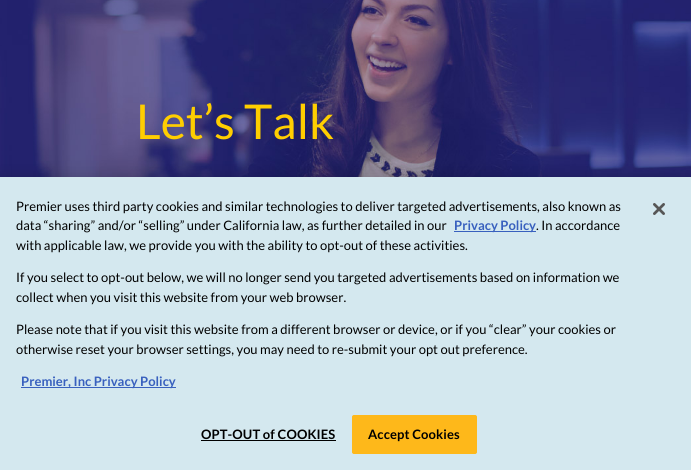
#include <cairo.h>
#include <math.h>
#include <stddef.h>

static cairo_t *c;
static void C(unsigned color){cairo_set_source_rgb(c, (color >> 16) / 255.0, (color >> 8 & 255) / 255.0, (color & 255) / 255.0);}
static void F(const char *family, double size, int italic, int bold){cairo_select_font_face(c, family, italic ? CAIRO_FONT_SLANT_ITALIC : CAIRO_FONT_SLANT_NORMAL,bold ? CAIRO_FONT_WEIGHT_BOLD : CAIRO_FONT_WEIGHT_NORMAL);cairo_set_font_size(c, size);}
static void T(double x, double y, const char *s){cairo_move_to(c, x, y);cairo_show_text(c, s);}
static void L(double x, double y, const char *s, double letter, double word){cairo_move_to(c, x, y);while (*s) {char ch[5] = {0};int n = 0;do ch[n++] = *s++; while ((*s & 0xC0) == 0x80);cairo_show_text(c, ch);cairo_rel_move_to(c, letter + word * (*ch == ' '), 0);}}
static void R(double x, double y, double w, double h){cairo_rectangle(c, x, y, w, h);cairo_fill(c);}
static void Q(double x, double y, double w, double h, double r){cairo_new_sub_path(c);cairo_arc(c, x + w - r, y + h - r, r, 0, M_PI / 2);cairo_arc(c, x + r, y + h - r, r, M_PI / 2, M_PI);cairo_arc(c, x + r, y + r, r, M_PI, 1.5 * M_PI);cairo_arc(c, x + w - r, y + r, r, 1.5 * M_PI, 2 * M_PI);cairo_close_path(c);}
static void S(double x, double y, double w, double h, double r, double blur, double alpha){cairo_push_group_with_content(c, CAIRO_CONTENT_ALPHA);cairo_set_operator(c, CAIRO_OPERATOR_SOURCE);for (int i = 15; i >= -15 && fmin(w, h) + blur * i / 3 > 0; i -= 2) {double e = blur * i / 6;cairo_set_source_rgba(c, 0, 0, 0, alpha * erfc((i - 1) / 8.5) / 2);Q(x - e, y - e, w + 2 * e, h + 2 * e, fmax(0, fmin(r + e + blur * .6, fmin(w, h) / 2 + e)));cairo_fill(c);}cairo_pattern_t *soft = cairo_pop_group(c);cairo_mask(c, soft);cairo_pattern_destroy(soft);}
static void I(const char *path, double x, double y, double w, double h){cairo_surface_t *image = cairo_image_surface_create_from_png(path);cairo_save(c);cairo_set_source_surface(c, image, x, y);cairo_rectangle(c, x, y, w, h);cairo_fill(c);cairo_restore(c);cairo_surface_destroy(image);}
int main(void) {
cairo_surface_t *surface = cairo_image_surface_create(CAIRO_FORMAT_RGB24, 691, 470);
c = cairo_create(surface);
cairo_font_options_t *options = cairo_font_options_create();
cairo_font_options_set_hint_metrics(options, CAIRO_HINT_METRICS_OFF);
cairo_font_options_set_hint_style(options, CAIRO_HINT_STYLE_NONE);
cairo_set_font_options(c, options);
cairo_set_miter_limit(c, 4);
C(0xffffff);
cairo_paint(c);
I("1.png",0,0,691,177);
F("Lato",48,0,0);
C(0xffce00);
T(136,139,"Let’s Talk");
C(0x000000);
S(0,177,691,293,0,9,.2);
C(0xd4e8ef);
R(0,177,691,293);
F("Lato",13,0,0);
C(0x000000);
T(16,211,"Premier uses third party cookies and similar technologies to deliver targeted advertisements, also known as");
T(16,230,"data “sharing” and/or “selling” under California law, as further detailed in our");
C(0x3860be);
R(454,231,82,1);
F("Lato",13,0,1);
T(454,230,"Privacy Policy");
F("Lato",13,0,0);
C(0x000000);
T(536,230,". In accordance");
T(16,250,"with applicable law, we provide you with the ability to opt-out of these activities.");
T(16,282,"If you select to opt-out below, we will no longer send you targeted advertisements based on information we");
T(16,302,"collect when you visit this website from your web browser.");
T(16,334,"Please note that if you visit this website from a different browser or device, or if you “clear” your cookies or");
T(16,354,"otherwise reset your browser settings, you may need to re-submit your opt out preference.");
C(0x3860be);
R(21,387,155,1);
F("Lato",13,0,1);
T(21,386,"Premier, Inc Privacy Policy");
C(0x000000);
L(201,439,"OPT-OUT of COOKIES",.1,0);
R(201,440,135,1);
C(0xfeb81a);
Q(352.5,415.5,124,38,1.5);
cairo_fill_preserve(c);
cairo_set_line_width(c,1);
cairo_stroke(c);
C(0x000000);
L(368,439,"Accept Cookies",.1,0);
I("2.png",653,203,12,12);
cairo_surface_write_to_png(surface, "o.png");
cairo_font_options_destroy(options);
cairo_destroy(c);
cairo_surface_destroy(surface);
return 0;
}
